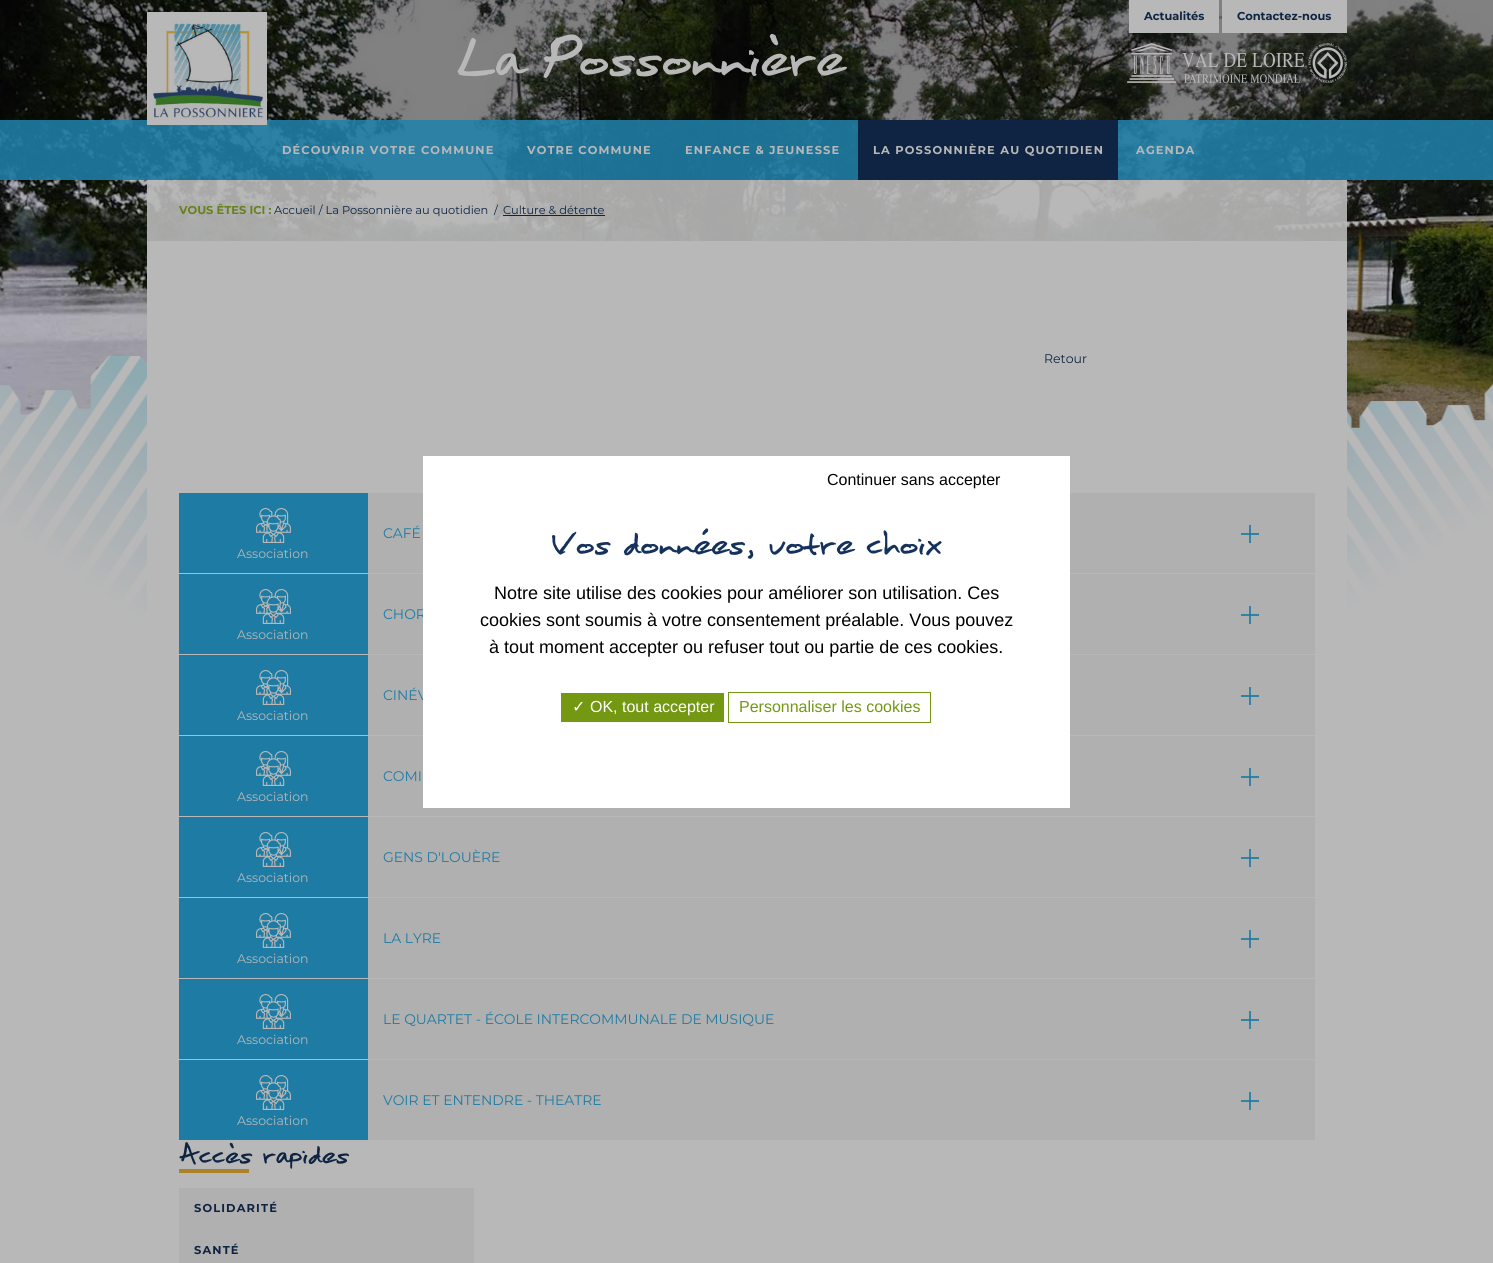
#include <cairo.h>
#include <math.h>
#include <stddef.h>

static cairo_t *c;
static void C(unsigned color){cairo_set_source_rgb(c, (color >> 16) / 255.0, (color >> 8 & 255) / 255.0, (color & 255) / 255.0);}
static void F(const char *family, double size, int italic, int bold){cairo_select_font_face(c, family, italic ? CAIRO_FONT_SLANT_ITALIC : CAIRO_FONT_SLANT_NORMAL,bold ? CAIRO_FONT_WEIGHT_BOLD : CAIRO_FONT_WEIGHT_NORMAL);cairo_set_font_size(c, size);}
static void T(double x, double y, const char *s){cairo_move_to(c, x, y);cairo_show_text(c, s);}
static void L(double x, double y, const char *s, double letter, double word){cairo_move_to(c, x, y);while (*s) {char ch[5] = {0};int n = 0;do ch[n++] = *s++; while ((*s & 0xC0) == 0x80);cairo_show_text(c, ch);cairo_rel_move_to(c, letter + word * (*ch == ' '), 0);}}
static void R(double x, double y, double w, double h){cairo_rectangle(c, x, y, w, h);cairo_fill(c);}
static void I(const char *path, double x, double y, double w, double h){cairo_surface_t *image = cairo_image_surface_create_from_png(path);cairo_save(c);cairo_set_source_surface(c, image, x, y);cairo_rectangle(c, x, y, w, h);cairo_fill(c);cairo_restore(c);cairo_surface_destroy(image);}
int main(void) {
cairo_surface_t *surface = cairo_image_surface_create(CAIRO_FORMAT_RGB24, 1493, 1263);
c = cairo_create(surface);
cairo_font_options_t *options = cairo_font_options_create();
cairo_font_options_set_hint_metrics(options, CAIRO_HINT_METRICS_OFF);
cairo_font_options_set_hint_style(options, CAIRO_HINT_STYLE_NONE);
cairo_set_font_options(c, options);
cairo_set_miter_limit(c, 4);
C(0xb8b8b8);
cairo_paint(c);
I("1.png",0,0,1493,428);
cairo_set_source_rgba(c,0,0,0,0.3);
R(0,0,1493,120);
C(0xb8b8b8);
R(1129,0,90,33);
F("Montserrat",11.4,0,1);
C(0x0e2442);
T(1144,20,"Actualités");
C(0xb8b8b8);
R(1222,0,125,33);
C(0x0e2442);
T(1237,20,"Contactez-nous");
I("2.png",1127,43,220,40);
cairo_set_source_rgba(c,0.118,0.482,0.639,0.9);
R(0,120,1493,60);
I("3.png",147,12,120,113);
F("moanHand",57,0,0);
C(0xb8b8b8);
T(456,75,"La Possonnière");
F("Montserrat",11.4,0,1);
L(282,154,"DÉCOUVRIR VOTRE COMMUNE",1.15,0);
L(527,154,"VOTRE COMMUNE",1.15,0);
L(685,154,"ENFANCE & JEUNESSE",1.15,0);
C(0x0e2442);
R(858,120,260,60);
C(0xb8b8b8);
L(873,154,"LA POSSONNIÈRE AU QUOTIDIEN",1.15,0);
L(1136,154,"AGENDA",1.15,0);
I("4.png",0,356,1493,315);
cairo_set_source_rgba(c,0.722,0.722,0.722,0.9);
R(147,180,1200,61);
C(0x66811b);
T(179,214,"VOUS ÊTES ICI :");
F("Montserrat",11.4,0,0);
C(0x0e2442);
T(274,214,"Accueil / La Possonnière au quotidien");
T(494,214,"/");
T(503,214,"Culture & détente");
R(503,215,102,1);
C(0xb8b8b8);
R(147,241,1200,430);
F("Montserrat",12.5,0,0);
C(0x0e2442);
T(1044,363,"Retour");
C(0xb0b0b0);
R(368,493,947,80);
F("Montserrat",13.9,0,0);
C(0x1e7ba3);
T(383,538,"CAFÉ");
I("5.png",1241,525,18,18);
R(179,493,189,80);
I("6.png",256,508,35,35);
F("Montserrat",12.5,0,0);
C(0xb8b8b8);
T(237,558,"Association");
C(0xb0b0b0);
R(368,574,947,80);
F("Montserrat",13.9,0,0);
C(0x1e7ba3);
T(383,619,"CHOR");
I("5.png",1241,606,18,18);
R(179,574,189,80);
I("6.png",256,589,35,35);
F("Montserrat",12.5,0,0);
C(0xb8b8b8);
T(237,639,"Association");
C(0xb0b0b0);
R(368,655,947,80);
F("Montserrat",13.9,0,0);
C(0x1e7ba3);
T(383,700,"CINÉV");
I("5.png",1241,687,18,18);
R(179,655,189,80);
I("6.png",256,670,35,35);
F("Montserrat",12.5,0,0);
C(0xb8b8b8);
T(237,720,"Association");
C(0xb0b0b0);
R(368,736,947,80);
F("Montserrat",13.9,0,0);
C(0x1e7ba3);
T(383,781,"COMI");
I("5.png",1241,768,18,18);
R(179,736,189,80);
I("6.png",256,751,35,35);
F("Montserrat",12.5,0,0);
C(0xb8b8b8);
T(237,801,"Association");
C(0xb0b0b0);
R(368,817,947,80);
F("Montserrat",13.9,0,0);
C(0x1e7ba3);
T(383,862,"GENS D'LOUÈRE");
I("5.png",1241,849,18,18);
R(179,817,189,80);
I("6.png",256,832,35,35);
F("Montserrat",12.5,0,0);
C(0xb8b8b8);
T(237,882,"Association");
C(0xb0b0b0);
R(368,898,947,80);
F("Montserrat",13.9,0,0);
C(0x1e7ba3);
T(383,943,"LA LYRE");
I("5.png",1241,930,18,18);
R(179,898,189,80);
I("6.png",256,913,35,35);
F("Montserrat",12.5,0,0);
C(0xb8b8b8);
T(237,963,"Association");
C(0xb0b0b0);
R(368,979,947,80);
F("Montserrat",13.9,0,0);
C(0x1e7ba3);
T(383,1024,"LE QUARTET - ÉCOLE INTERCOMMUNALE DE MUSIQUE");
I("5.png",1241,1011,18,18);
R(179,979,189,80);
I("6.png",256,994,35,35);
F("Montserrat",12.5,0,0);
C(0xb8b8b8);
T(237,1044,"Association");
C(0xb0b0b0);
R(368,1060,947,80);
F("Montserrat",13.9,0,0);
C(0x1e7ba3);
T(383,1105,"VOIR ET ENTENDRE - THEATRE");
I("5.png",1241,1092,18,18);
R(179,1060,189,80);
I("6.png",256,1075,35,35);
F("Montserrat",12.5,0,0);
C(0xb8b8b8);
T(237,1125,"Association");
F("moanHand",28,0,0);
C(0x0e2442);
T(179,1163,"Accès rapides");
C(0xab8225);
R(179,1169,70,4);
C(0xb0b0b0);
R(179,1188,295,75);
F("Montserrat",11.4,0,1);
C(0x0e2442);
L(194,1212,"SOLIDARITÉ",1.15,0);
L(194,1254,"SANTÉ",1.15,0);
C(0xffffff);
R(423,456,647,352);
F("Liberation Sans",16,0,0);
C(0x000000);
T(827,485,"Continuer sans accepter");
F("moanHand",35,0,0);
C(0x14325c);
T(551,554,"Vos données, votre choix");
F("Liberation Sans",18,0,0);
C(0x000000);
T(494,599,"Notre site utilise des cookies pour améliorer son utilisation. Ces");
T(480,626,"cookies sont soumis à votre consentement préalable. Vous pouvez");
T(489,653,"à tout moment accepter ou refuser tout ou partie de ces cookies.");
C(0x749812);
R(561,693,163,29);
F("DejaVu Sans",16,0,0);
C(0xffffff);
T(572,712,"✓");
F("Liberation Sans",16,0,0);
T(590,712,"OK, tout accepter");
cairo_rectangle(c,728.5,692.5,202,30);
C(0x749812);
cairo_set_line_width(c,1);
cairo_stroke(c);
T(739,712,"Personnaliser les cookies");
cairo_surface_write_to_png(surface, "o.png");
cairo_font_options_destroy(options);
cairo_destroy(c);
cairo_surface_destroy(surface);
return 0;
}
